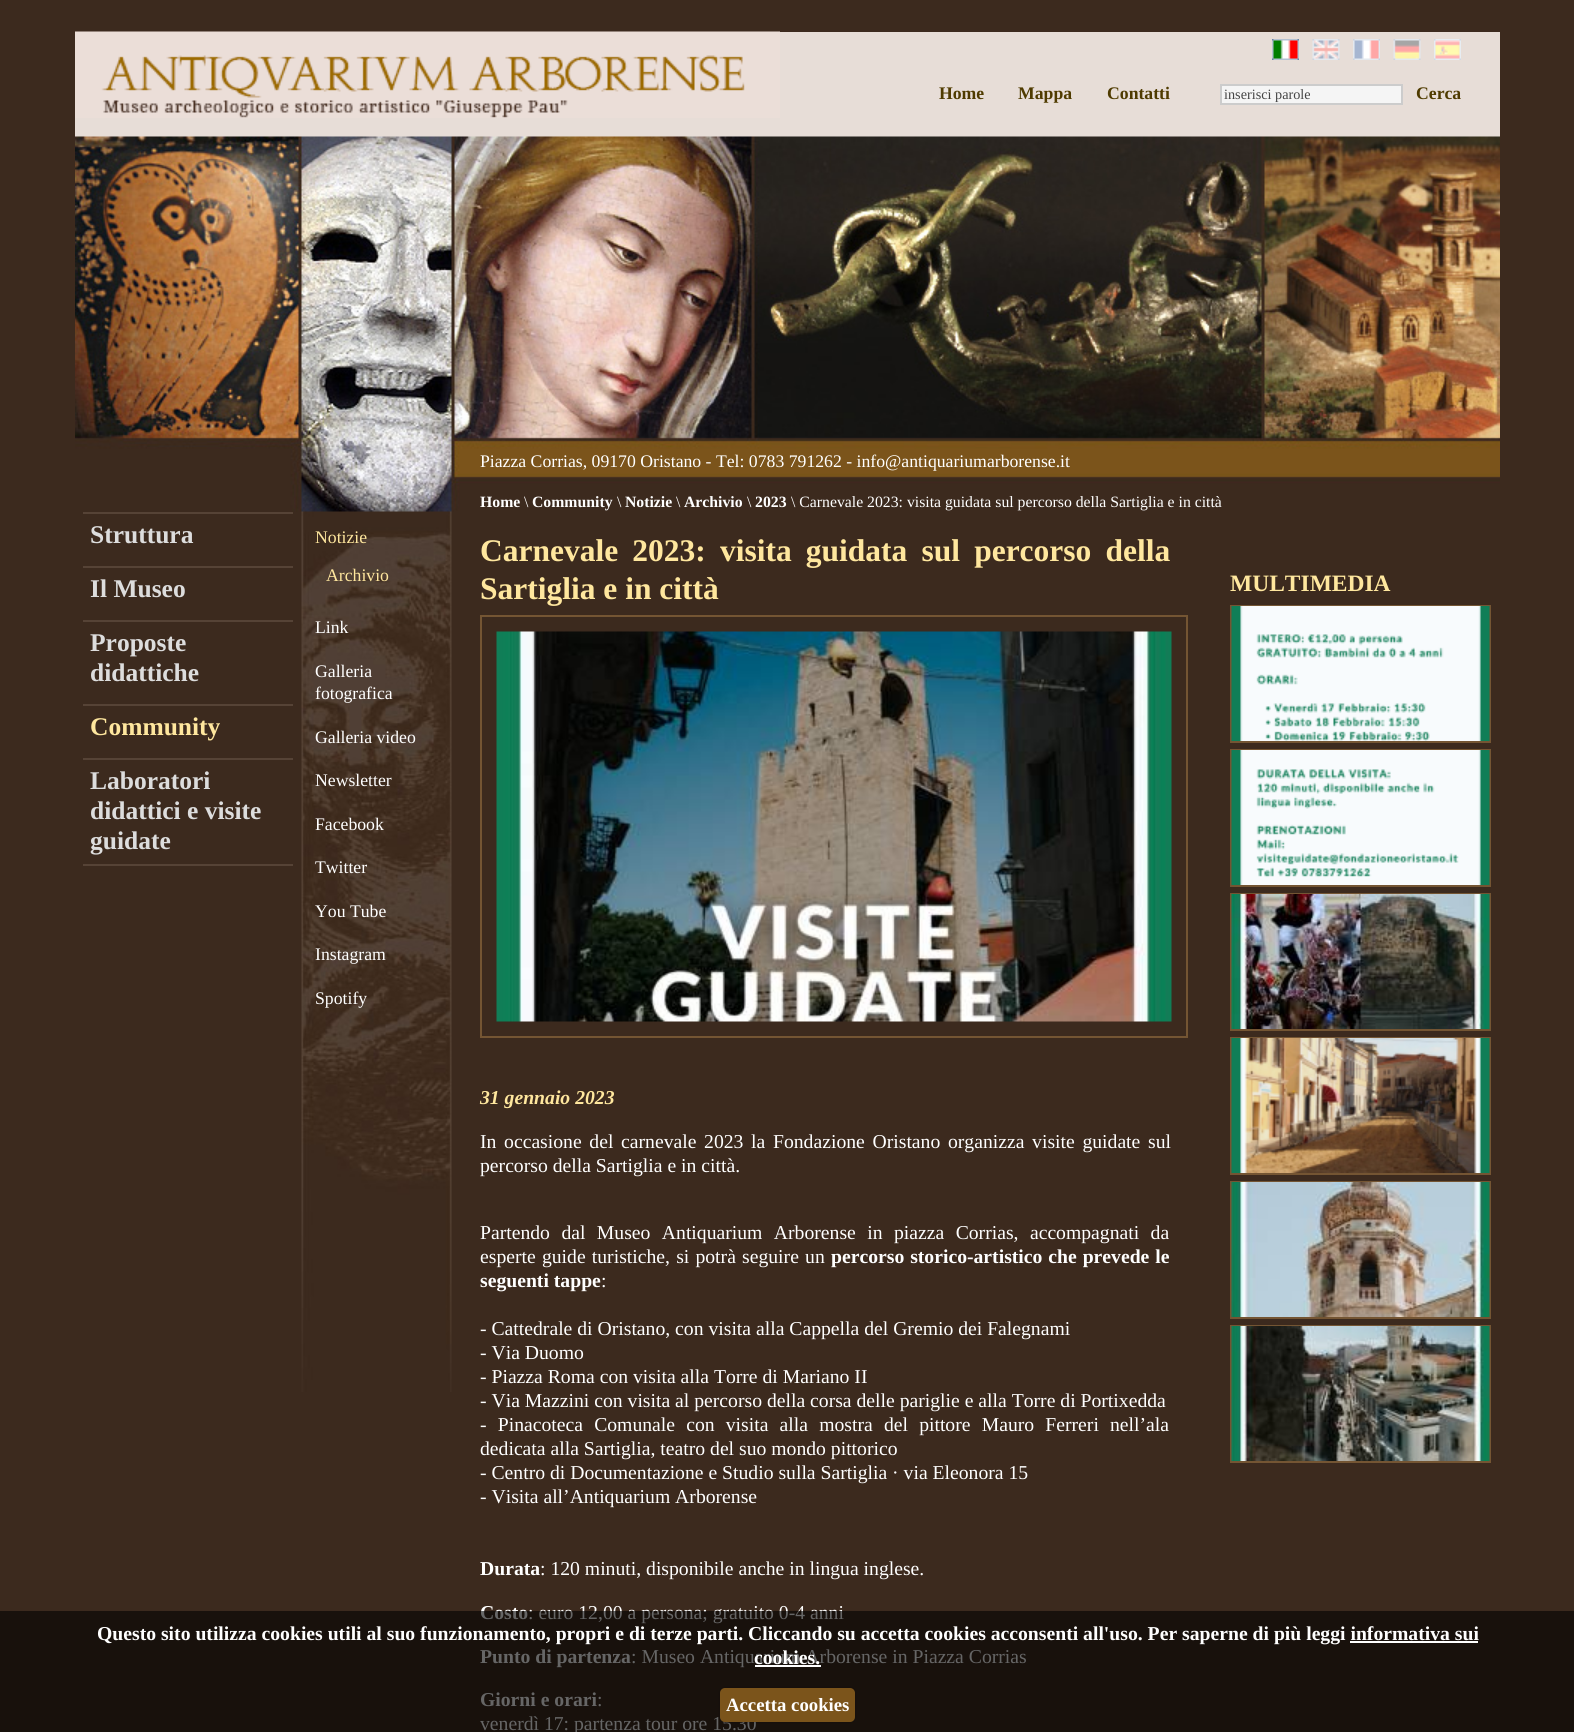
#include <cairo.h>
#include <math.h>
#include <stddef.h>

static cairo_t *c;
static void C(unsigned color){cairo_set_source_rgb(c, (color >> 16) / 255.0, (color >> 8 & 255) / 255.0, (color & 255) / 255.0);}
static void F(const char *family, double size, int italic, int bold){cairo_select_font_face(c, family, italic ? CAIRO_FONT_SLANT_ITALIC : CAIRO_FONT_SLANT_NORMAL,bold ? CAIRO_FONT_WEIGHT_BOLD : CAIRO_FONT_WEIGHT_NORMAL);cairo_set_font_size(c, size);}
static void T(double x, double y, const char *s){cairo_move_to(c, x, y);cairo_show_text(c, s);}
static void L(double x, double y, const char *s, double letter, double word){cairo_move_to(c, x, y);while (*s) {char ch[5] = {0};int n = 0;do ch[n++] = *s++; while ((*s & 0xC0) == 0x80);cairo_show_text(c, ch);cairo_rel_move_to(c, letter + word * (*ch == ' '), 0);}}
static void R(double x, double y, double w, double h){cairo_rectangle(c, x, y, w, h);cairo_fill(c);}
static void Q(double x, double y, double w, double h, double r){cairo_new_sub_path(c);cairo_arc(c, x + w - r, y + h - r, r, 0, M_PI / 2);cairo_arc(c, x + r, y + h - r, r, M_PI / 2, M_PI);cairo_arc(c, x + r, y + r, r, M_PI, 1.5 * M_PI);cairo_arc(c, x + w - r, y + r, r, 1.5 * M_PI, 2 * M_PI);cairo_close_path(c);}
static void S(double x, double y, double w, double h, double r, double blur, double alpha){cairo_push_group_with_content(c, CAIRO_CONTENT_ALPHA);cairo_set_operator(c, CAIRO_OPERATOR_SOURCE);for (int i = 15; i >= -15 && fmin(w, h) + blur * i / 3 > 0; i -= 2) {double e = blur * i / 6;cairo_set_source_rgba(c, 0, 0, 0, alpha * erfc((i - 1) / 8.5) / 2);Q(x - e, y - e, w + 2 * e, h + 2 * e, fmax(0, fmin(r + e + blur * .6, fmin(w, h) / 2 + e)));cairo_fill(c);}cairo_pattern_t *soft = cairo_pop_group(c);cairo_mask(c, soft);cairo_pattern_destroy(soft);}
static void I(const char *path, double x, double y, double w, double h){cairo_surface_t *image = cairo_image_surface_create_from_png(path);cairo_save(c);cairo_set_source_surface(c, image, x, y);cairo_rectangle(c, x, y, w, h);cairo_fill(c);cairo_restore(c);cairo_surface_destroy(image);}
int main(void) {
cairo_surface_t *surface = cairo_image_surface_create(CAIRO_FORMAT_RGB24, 1574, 1732);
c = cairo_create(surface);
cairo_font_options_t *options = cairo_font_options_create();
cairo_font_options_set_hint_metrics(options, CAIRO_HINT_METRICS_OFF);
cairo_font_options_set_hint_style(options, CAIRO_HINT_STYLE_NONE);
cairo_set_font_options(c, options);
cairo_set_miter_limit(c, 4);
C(0x3c2a1e);
cairo_paint(c);
C(0xe7ddd7);
R(75,32,1425,105);
I("1.png",75,31,705,87);
I("2.png",1272,39,27,21);
I("3.png",1312,39,28,21);
I("4.png",1353,39,27,21);
I("5.png",1393,39,28,21);
I("6.png",1434,39,27,21);
F("Liberation Serif",17.7,0,1);
C(0x4f3b00);
T(939,99,"Home");
T(1018,99,"Mappa");
T(1107,99,"Contatti");
C(0xf5f5f5);
cairo_rectangle(c,1221,85,181,19);
cairo_fill_preserve(c);
C(0xcccccc);
cairo_stroke(c);
F("Liberation Serif",14.25,0,0);
C(0x444444);
T(1224,99,"inserisci parole");
F("Liberation Serif",17.7,0,1);
C(0x4f3b00);
T(1416,99,"Cerca");
I("8.png",301,511,151,881);
I("7.png",75,136,1425,376);
F("Liberation Serif",17.7,0,0);
C(0xffffff);
T(480,467,"Piazza Corrias, 09170 Oristano - Tel: 0783 791262 - info@antiquariumarborense.it");
C(0x564336);
R(83,512,210,2);
F("Liberation Serif",25.5,0,1);
C(0xdddddd);
T(90,543,"Struttura");
C(0x564336);
R(83,566,210,2);
C(0xdddddd);
T(90,597,"Il Museo");
C(0x564336);
R(83,620,210,2);
C(0xdddddd);
T(90,651,"Proposte");
T(90,681,"didattiche");
C(0x564336);
R(83,704,210,2);
C(0xffe79e);
T(90,735,"Community");
C(0x564336);
R(83,758,210,2);
R(83,864,210,2);
C(0xdddddd);
T(90,789,"Laboratori");
T(90,819,"didattici e visite");
T(90,849,"guidate");
F("Liberation Serif",17.7,0,0);
C(0xffe79e);
T(315,543,"Notizie");
T(326,581,"Archivio");
C(0xffffff);
T(315,633,"Link");
T(315,677,"Galleria");
T(315,699,"fotografica");
T(315,743,"Galleria video");
T(315,786,"Newsletter");
T(315,830,"Facebook");
T(315,873,"Twitter");
T(315,917,"You Tube");
T(315,960,"Instagram");
T(315,1004,"Spotify");
F("Liberation Serif",15.75,0,1);
T(480,507,"Home");
F("Liberation Serif",15.75,0,0);
T(524,507,"\\");
F("Liberation Serif",15.75,0,1);
T(532,507,"Community");
F("Liberation Serif",15.75,0,0);
T(617,507,"\\");
F("Liberation Serif",15.75,0,1);
T(625,507,"Notizie");
F("Liberation Serif",15.75,0,0);
T(676,507,"\\");
F("Liberation Serif",15.75,0,1);
T(684,507,"Archivio");
F("Liberation Serif",15.75,0,0);
T(747,507,"\\");
F("Liberation Serif",15.75,0,1);
T(755,507,"2023");
F("Liberation Serif",15.75,0,0);
T(791,507,"\\ Carnevale 2023: visita guidata sul percorso della Sartiglia e in città");
F("Liberation Serif",31.5,0,1);
C(0xffe79e);
L(480,561,"Carnevale 2023: visita guidata sul percorso della",0,6.25);
T(480,599,"Sartiglia e in città");
cairo_rectangle(c,481,616,706,421);
C(0x745533);
cairo_stroke(c);
I("9.png",496,631,676,391);
F("Liberation Serif",19.68,1,1);
C(0xffe79e);
T(480,1104,"31 gennaio 2023");
F("Liberation Serif",19.68,0,0);
C(0xffffff);
L(480,1148,"In occasione del carnevale 2023 la Fondazione Oristano organizza visite guidate sul",0,2.75);
T(480,1172,"percorso della Sartiglia e in città.");
L(480,1239,"Partendo dal Museo Antiquarium Arborense in piazza Corrias, accompagnati da",0,6.5);
L(480,1263,"esperte guide turistiche, si potrà seguire un",0,1.25);
F("Liberation Serif",19.68,0,1);
L(831,1263,"percorso storico-artistico che prevede le",0,1);
T(480,1287,"seguenti tappe");
F("Liberation Serif",19.68,0,0);
T(601,1287,":");
T(480,1335,"- Cattedrale di Oristano, con visita alla Cappella del Gremio dei Falegnami");
T(480,1359,"- Via Duomo");
T(480,1383,"- Piazza Roma con visita alla Torre di Mariano II");
T(480,1407,"- Via Mazzini con visita al percorso della corsa delle pariglie e alla Torre di Portixedda");
L(480,1431,"- Pinacoteca Comunale con visita alla mostra del pittore Mauro Ferreri nell’ala",0,6.25);
T(480,1455,"dedicata alla Sartiglia, teatro del suo mondo pittorico");
T(480,1479,"- Centro di Documentazione e Studio sulla Sartiglia · via Eleonora 15");
T(480,1503,"- Visita all’Antiquarium Arborense");
F("Liberation Serif",19.68,0,1);
T(480,1575,"Durata");
F("Liberation Serif",19.68,0,0);
T(540,1575,": 120 minuti, disponibile anche in lingua inglese.");
F("Liberation Serif",19.68,0,1);
T(480,1619,"Costo");
F("Liberation Serif",19.68,0,0);
T(528,1619,": euro 12,00 a persona; gratuito 0-4 anni");
F("Liberation Serif",19.68,0,1);
T(480,1663,"Punto di partenza");
F("Liberation Serif",19.68,0,0);
T(631,1663,": Museo Antiquarium Arborense in Piazza Corrias");
F("Liberation Serif",19.68,0,1);
T(480,1706,"Giorni e orari");
F("Liberation Serif",19.68,0,0);
T(597,1706,":");
T(480,1730,"venerdì 17: partenza tour ore 15.30");
F("Liberation Serif",23.5,0,1);
C(0xffe79e);
T(1230,591,"MULTIMEDIA");
cairo_rectangle(c,1231,606,259,136);
C(0x745533);
cairo_stroke(c);
I("10.png",1231,606,259,135);
cairo_rectangle(c,1231,750,259,136);
cairo_stroke(c);
I("11.png",1231,750,259,135);
cairo_rectangle(c,1231,894,259,136);
cairo_stroke(c);
I("12.png",1231,894,259,135);
cairo_rectangle(c,1231,1038,259,136);
cairo_stroke(c);
I("13.png",1231,1038,259,135);
cairo_rectangle(c,1231,1182,259,136);
cairo_stroke(c);
I("14.png",1231,1182,259,135);
cairo_rectangle(c,1231,1326,259,136);
cairo_stroke(c);
I("15.png",1231,1326,259,135);
cairo_set_source_rgba(c,0,0,0,0.6);
R(0,1611,1574,121);
F("Liberation Serif",19.68,0,1);
C(0xffffff);
T(97,1640,"Questo sito utilizza cookies utili al suo funzionamento, propri e di terze parti. Cliccando su accetta cookies acconsenti all'uso. Per saperne di più leggi informativa sui");
T(754,1664,"cookies.");
R(1350,1641,128,2);
R(755,1665,66,2);
C(0x000000);
S(720,1688,135,34,5,1.5,.25);
C(0x7b541b);
Q(720,1688,135,34,5);
cairo_fill(c);
F("Liberation Serif",18.75,0,1);
C(0xffffff);
T(726,1711,"Accetta cookies");
cairo_surface_write_to_png(surface, "o.png");
cairo_font_options_destroy(options);
cairo_destroy(c);
cairo_surface_destroy(surface);
return 0;
}
